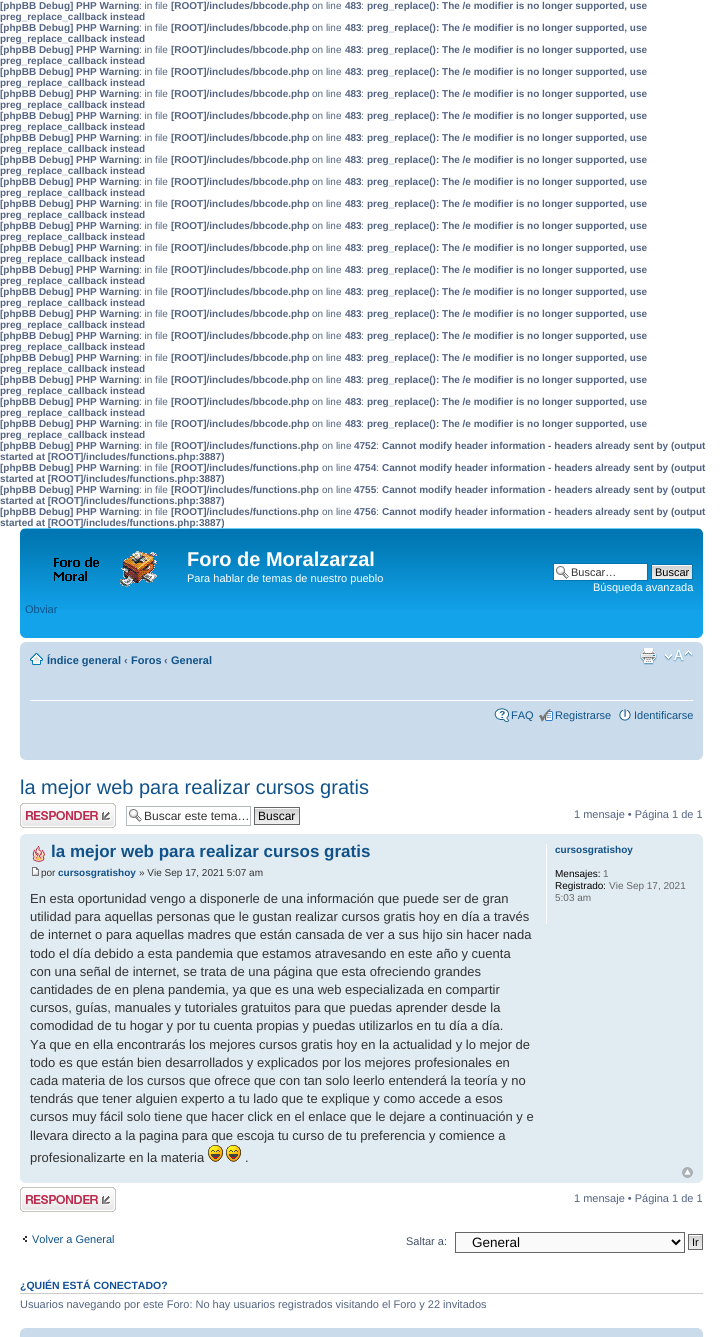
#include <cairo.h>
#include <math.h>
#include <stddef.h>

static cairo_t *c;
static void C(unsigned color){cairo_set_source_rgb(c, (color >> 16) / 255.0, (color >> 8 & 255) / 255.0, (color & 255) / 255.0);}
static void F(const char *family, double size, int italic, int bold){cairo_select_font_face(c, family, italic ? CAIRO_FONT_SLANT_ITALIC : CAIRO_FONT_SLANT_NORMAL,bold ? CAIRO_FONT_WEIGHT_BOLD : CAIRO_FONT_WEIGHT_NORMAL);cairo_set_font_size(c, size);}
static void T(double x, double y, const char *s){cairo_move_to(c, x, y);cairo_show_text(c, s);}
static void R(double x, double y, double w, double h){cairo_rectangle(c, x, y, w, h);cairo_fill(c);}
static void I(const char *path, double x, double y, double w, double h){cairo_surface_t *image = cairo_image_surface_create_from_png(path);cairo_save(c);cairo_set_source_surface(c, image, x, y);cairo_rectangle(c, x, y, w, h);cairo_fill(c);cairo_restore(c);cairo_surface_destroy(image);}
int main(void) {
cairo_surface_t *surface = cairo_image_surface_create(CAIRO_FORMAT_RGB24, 723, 1337);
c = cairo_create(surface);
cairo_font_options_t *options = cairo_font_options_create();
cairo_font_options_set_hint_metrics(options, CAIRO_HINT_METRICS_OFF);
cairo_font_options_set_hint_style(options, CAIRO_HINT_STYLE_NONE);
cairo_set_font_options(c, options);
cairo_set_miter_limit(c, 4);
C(0xffffff);
cairo_paint(c);
F("Liberation Sans",10,0,1);
C(0x536482);
T(0,9,"[phpBB Debug] PHP Warning");
F("Liberation Sans",10,0,0);
T(139,9,": in file");
F("Liberation Sans",10,0,1);
T(171,9,"[ROOT]/includes/bbcode.php");
F("Liberation Sans",10,0,0);
T(312,9,"on line");
F("Liberation Sans",10,0,1);
T(345,9,"483");
F("Liberation Sans",10,0,0);
T(361,9,":");
F("Liberation Sans",10,0,1);
T(367,9,"preg_replace(): The /e modifier is no longer supported, use");
T(0,20,"preg_replace_callback instead");
T(0,31,"[phpBB Debug] PHP Warning");
F("Liberation Sans",10,0,0);
T(139,31,": in file");
F("Liberation Sans",10,0,1);
T(171,31,"[ROOT]/includes/bbcode.php");
F("Liberation Sans",10,0,0);
T(312,31,"on line");
F("Liberation Sans",10,0,1);
T(345,31,"483");
F("Liberation Sans",10,0,0);
T(361,31,":");
F("Liberation Sans",10,0,1);
T(367,31,"preg_replace(): The /e modifier is no longer supported, use");
T(0,42,"preg_replace_callback instead");
T(0,53,"[phpBB Debug] PHP Warning");
F("Liberation Sans",10,0,0);
T(139,53,": in file");
F("Liberation Sans",10,0,1);
T(171,53,"[ROOT]/includes/bbcode.php");
F("Liberation Sans",10,0,0);
T(312,53,"on line");
F("Liberation Sans",10,0,1);
T(345,53,"483");
F("Liberation Sans",10,0,0);
T(361,53,":");
F("Liberation Sans",10,0,1);
T(367,53,"preg_replace(): The /e modifier is no longer supported, use");
T(0,64,"preg_replace_callback instead");
T(0,75,"[phpBB Debug] PHP Warning");
F("Liberation Sans",10,0,0);
T(139,75,": in file");
F("Liberation Sans",10,0,1);
T(171,75,"[ROOT]/includes/bbcode.php");
F("Liberation Sans",10,0,0);
T(312,75,"on line");
F("Liberation Sans",10,0,1);
T(345,75,"483");
F("Liberation Sans",10,0,0);
T(361,75,":");
F("Liberation Sans",10,0,1);
T(367,75,"preg_replace(): The /e modifier is no longer supported, use");
T(0,86,"preg_replace_callback instead");
T(0,97,"[phpBB Debug] PHP Warning");
F("Liberation Sans",10,0,0);
T(139,97,": in file");
F("Liberation Sans",10,0,1);
T(171,97,"[ROOT]/includes/bbcode.php");
F("Liberation Sans",10,0,0);
T(312,97,"on line");
F("Liberation Sans",10,0,1);
T(345,97,"483");
F("Liberation Sans",10,0,0);
T(361,97,":");
F("Liberation Sans",10,0,1);
T(367,97,"preg_replace(): The /e modifier is no longer supported, use");
T(0,108,"preg_replace_callback instead");
T(0,119,"[phpBB Debug] PHP Warning");
F("Liberation Sans",10,0,0);
T(139,119,": in file");
F("Liberation Sans",10,0,1);
T(171,119,"[ROOT]/includes/bbcode.php");
F("Liberation Sans",10,0,0);
T(312,119,"on line");
F("Liberation Sans",10,0,1);
T(345,119,"483");
F("Liberation Sans",10,0,0);
T(361,119,":");
F("Liberation Sans",10,0,1);
T(367,119,"preg_replace(): The /e modifier is no longer supported, use");
T(0,130,"preg_replace_callback instead");
T(0,141,"[phpBB Debug] PHP Warning");
F("Liberation Sans",10,0,0);
T(139,141,": in file");
F("Liberation Sans",10,0,1);
T(171,141,"[ROOT]/includes/bbcode.php");
F("Liberation Sans",10,0,0);
T(312,141,"on line");
F("Liberation Sans",10,0,1);
T(345,141,"483");
F("Liberation Sans",10,0,0);
T(361,141,":");
F("Liberation Sans",10,0,1);
T(367,141,"preg_replace(): The /e modifier is no longer supported, use");
T(0,152,"preg_replace_callback instead");
T(0,163,"[phpBB Debug] PHP Warning");
F("Liberation Sans",10,0,0);
T(139,163,": in file");
F("Liberation Sans",10,0,1);
T(171,163,"[ROOT]/includes/bbcode.php");
F("Liberation Sans",10,0,0);
T(312,163,"on line");
F("Liberation Sans",10,0,1);
T(345,163,"483");
F("Liberation Sans",10,0,0);
T(361,163,":");
F("Liberation Sans",10,0,1);
T(367,163,"preg_replace(): The /e modifier is no longer supported, use");
T(0,174,"preg_replace_callback instead");
T(0,185,"[phpBB Debug] PHP Warning");
F("Liberation Sans",10,0,0);
T(139,185,": in file");
F("Liberation Sans",10,0,1);
T(171,185,"[ROOT]/includes/bbcode.php");
F("Liberation Sans",10,0,0);
T(312,185,"on line");
F("Liberation Sans",10,0,1);
T(345,185,"483");
F("Liberation Sans",10,0,0);
T(361,185,":");
F("Liberation Sans",10,0,1);
T(367,185,"preg_replace(): The /e modifier is no longer supported, use");
T(0,196,"preg_replace_callback instead");
T(0,207,"[phpBB Debug] PHP Warning");
F("Liberation Sans",10,0,0);
T(139,207,": in file");
F("Liberation Sans",10,0,1);
T(171,207,"[ROOT]/includes/bbcode.php");
F("Liberation Sans",10,0,0);
T(312,207,"on line");
F("Liberation Sans",10,0,1);
T(345,207,"483");
F("Liberation Sans",10,0,0);
T(361,207,":");
F("Liberation Sans",10,0,1);
T(367,207,"preg_replace(): The /e modifier is no longer supported, use");
T(0,218,"preg_replace_callback instead");
T(0,229,"[phpBB Debug] PHP Warning");
F("Liberation Sans",10,0,0);
T(139,229,": in file");
F("Liberation Sans",10,0,1);
T(171,229,"[ROOT]/includes/bbcode.php");
F("Liberation Sans",10,0,0);
T(312,229,"on line");
F("Liberation Sans",10,0,1);
T(345,229,"483");
F("Liberation Sans",10,0,0);
T(361,229,":");
F("Liberation Sans",10,0,1);
T(367,229,"preg_replace(): The /e modifier is no longer supported, use");
T(0,240,"preg_replace_callback instead");
T(0,251,"[phpBB Debug] PHP Warning");
F("Liberation Sans",10,0,0);
T(139,251,": in file");
F("Liberation Sans",10,0,1);
T(171,251,"[ROOT]/includes/bbcode.php");
F("Liberation Sans",10,0,0);
T(312,251,"on line");
F("Liberation Sans",10,0,1);
T(345,251,"483");
F("Liberation Sans",10,0,0);
T(361,251,":");
F("Liberation Sans",10,0,1);
T(367,251,"preg_replace(): The /e modifier is no longer supported, use");
T(0,262,"preg_replace_callback instead");
T(0,273,"[phpBB Debug] PHP Warning");
F("Liberation Sans",10,0,0);
T(139,273,": in file");
F("Liberation Sans",10,0,1);
T(171,273,"[ROOT]/includes/bbcode.php");
F("Liberation Sans",10,0,0);
T(312,273,"on line");
F("Liberation Sans",10,0,1);
T(345,273,"483");
F("Liberation Sans",10,0,0);
T(361,273,":");
F("Liberation Sans",10,0,1);
T(367,273,"preg_replace(): The /e modifier is no longer supported, use");
T(0,284,"preg_replace_callback instead");
T(0,295,"[phpBB Debug] PHP Warning");
F("Liberation Sans",10,0,0);
T(139,295,": in file");
F("Liberation Sans",10,0,1);
T(171,295,"[ROOT]/includes/bbcode.php");
F("Liberation Sans",10,0,0);
T(312,295,"on line");
F("Liberation Sans",10,0,1);
T(345,295,"483");
F("Liberation Sans",10,0,0);
T(361,295,":");
F("Liberation Sans",10,0,1);
T(367,295,"preg_replace(): The /e modifier is no longer supported, use");
T(0,306,"preg_replace_callback instead");
T(0,317,"[phpBB Debug] PHP Warning");
F("Liberation Sans",10,0,0);
T(139,317,": in file");
F("Liberation Sans",10,0,1);
T(171,317,"[ROOT]/includes/bbcode.php");
F("Liberation Sans",10,0,0);
T(312,317,"on line");
F("Liberation Sans",10,0,1);
T(345,317,"483");
F("Liberation Sans",10,0,0);
T(361,317,":");
F("Liberation Sans",10,0,1);
T(367,317,"preg_replace(): The /e modifier is no longer supported, use");
T(0,328,"preg_replace_callback instead");
T(0,339,"[phpBB Debug] PHP Warning");
F("Liberation Sans",10,0,0);
T(139,339,": in file");
F("Liberation Sans",10,0,1);
T(171,339,"[ROOT]/includes/bbcode.php");
F("Liberation Sans",10,0,0);
T(312,339,"on line");
F("Liberation Sans",10,0,1);
T(345,339,"483");
F("Liberation Sans",10,0,0);
T(361,339,":");
F("Liberation Sans",10,0,1);
T(367,339,"preg_replace(): The /e modifier is no longer supported, use");
T(0,350,"preg_replace_callback instead");
T(0,361,"[phpBB Debug] PHP Warning");
F("Liberation Sans",10,0,0);
T(139,361,": in file");
F("Liberation Sans",10,0,1);
T(171,361,"[ROOT]/includes/bbcode.php");
F("Liberation Sans",10,0,0);
T(312,361,"on line");
F("Liberation Sans",10,0,1);
T(345,361,"483");
F("Liberation Sans",10,0,0);
T(361,361,":");
F("Liberation Sans",10,0,1);
T(367,361,"preg_replace(): The /e modifier is no longer supported, use");
T(0,372,"preg_replace_callback instead");
T(0,383,"[phpBB Debug] PHP Warning");
F("Liberation Sans",10,0,0);
T(139,383,": in file");
F("Liberation Sans",10,0,1);
T(171,383,"[ROOT]/includes/bbcode.php");
F("Liberation Sans",10,0,0);
T(312,383,"on line");
F("Liberation Sans",10,0,1);
T(345,383,"483");
F("Liberation Sans",10,0,0);
T(361,383,":");
F("Liberation Sans",10,0,1);
T(367,383,"preg_replace(): The /e modifier is no longer supported, use");
T(0,394,"preg_replace_callback instead");
T(0,405,"[phpBB Debug] PHP Warning");
F("Liberation Sans",10,0,0);
T(139,405,": in file");
F("Liberation Sans",10,0,1);
T(171,405,"[ROOT]/includes/bbcode.php");
F("Liberation Sans",10,0,0);
T(312,405,"on line");
F("Liberation Sans",10,0,1);
T(345,405,"483");
F("Liberation Sans",10,0,0);
T(361,405,":");
F("Liberation Sans",10,0,1);
T(367,405,"preg_replace(): The /e modifier is no longer supported, use");
T(0,416,"preg_replace_callback instead");
T(0,427,"[phpBB Debug] PHP Warning");
F("Liberation Sans",10,0,0);
T(139,427,": in file");
F("Liberation Sans",10,0,1);
T(171,427,"[ROOT]/includes/bbcode.php");
F("Liberation Sans",10,0,0);
T(312,427,"on line");
F("Liberation Sans",10,0,1);
T(345,427,"483");
F("Liberation Sans",10,0,0);
T(361,427,":");
F("Liberation Sans",10,0,1);
T(367,427,"preg_replace(): The /e modifier is no longer supported, use");
T(0,438,"preg_replace_callback instead");
T(0,449,"[phpBB Debug] PHP Warning");
F("Liberation Sans",10,0,0);
T(139,449,": in file");
F("Liberation Sans",10,0,1);
T(171,449,"[ROOT]/includes/functions.php");
F("Liberation Sans",10,0,0);
T(322,449,"on line");
F("Liberation Sans",10,0,1);
T(354,449,"4752");
F("Liberation Sans",10,0,0);
T(376,449,":");
F("Liberation Sans",10,0,1);
T(382,449,"Cannot modify header information - headers already sent by (output");
T(0,460,"started at [ROOT]/includes/functions.php:3887)");
T(0,471,"[phpBB Debug] PHP Warning");
F("Liberation Sans",10,0,0);
T(139,471,": in file");
F("Liberation Sans",10,0,1);
T(171,471,"[ROOT]/includes/functions.php");
F("Liberation Sans",10,0,0);
T(322,471,"on line");
F("Liberation Sans",10,0,1);
T(354,471,"4754");
F("Liberation Sans",10,0,0);
T(376,471,":");
F("Liberation Sans",10,0,1);
T(382,471,"Cannot modify header information - headers already sent by (output");
T(0,482,"started at [ROOT]/includes/functions.php:3887)");
T(0,493,"[phpBB Debug] PHP Warning");
F("Liberation Sans",10,0,0);
T(139,493,": in file");
F("Liberation Sans",10,0,1);
T(171,493,"[ROOT]/includes/functions.php");
F("Liberation Sans",10,0,0);
T(322,493,"on line");
F("Liberation Sans",10,0,1);
T(354,493,"4755");
F("Liberation Sans",10,0,0);
T(376,493,":");
F("Liberation Sans",10,0,1);
T(382,493,"Cannot modify header information - headers already sent by (output");
T(0,504,"started at [ROOT]/includes/functions.php:3887)");
T(0,515,"[phpBB Debug] PHP Warning");
F("Liberation Sans",10,0,0);
T(139,515,": in file");
F("Liberation Sans",10,0,1);
T(171,515,"[ROOT]/includes/functions.php");
F("Liberation Sans",10,0,0);
T(322,515,"on line");
F("Liberation Sans",10,0,1);
T(354,515,"4756");
F("Liberation Sans",10,0,0);
T(376,515,":");
F("Liberation Sans",10,0,1);
T(382,515,"Cannot modify header information - headers already sent by (output");
I("1.png",20,528,683,82);
I("2.png",20,528,5,5);
T(0,526,"started at [ROOT]/includes/functions.php:3887)");
C(0x12a3eb);
R(20,610,683,28);
I("3.png",698,528,5,5);
I("4.png",54,551,103,36);
F("Liberation Sans",20,0,1);
C(0xffffff);
T(187,566,"Foro de Moralzarzal");
F("Liberation Sans",11,0,0);
T(187,582,"Para hablar de temas de nuestro pueblo");
C(0x105289);
T(25,613,"Obviar");
C(0xffffff);
R(554,564,93,16);
I("5.png",556,566,13,13);
cairo_rectangle(c,553.5,563.5,94,17);
C(0x0075b0);
cairo_set_line_width(c,1);
cairo_stroke(c);
C(0x333333);
T(571,576,"Buscar…");
I("6.png",652,565,40,14);
cairo_rectangle(c,651.5,564.5,41,15);
C(0x0075b0);
cairo_stroke(c);
C(0x000000);
T(655,576,"Buscar");
C(0xffffff);
T(593,591,"Búsqueda avanzada");
I("7.png",20,633,5,5);
I("8.png",698,633,5,5);
C(0xcadceb);
R(20,642,683,118);
I("9.png",20,642,5,5);
I("10.png",698,642,5,5);
C(0xffffff);
R(30,700,663,1);
I("11.png",30,653,13,12);
F("Liberation Sans",11,0,1);
C(0x105289);
T(47,664,"Índice general");
C(0x536482);
T(124,664,"‹");
C(0x105289);
T(131,664,"Foros");
C(0x536482);
T(164,664,"‹");
C(0x105289);
T(171,664,"General");
I("12.png",640,648,17,17);
I("13.png",664,650,29,12);
I("14.png",494,708,16,14);
F("Liberation Sans",11,0,0);
T(511,719,"FAQ");
I("15.png",539,709,14,13);
T(555,719,"Registrarse");
I("16.png",619,709,12,12);
T(634,719,"Identificarse");
I("17.png",20,755,5,5);
I("18.png",698,755,5,5);
F("Liberation Sans",20,0,0);
T(20,794,"la mejor web para realizar cursos gratis");
I("19.png",20,803,96,25);
I("5.png",129,809,13,13);
cairo_rectangle(c,126.5,806.5,124,19);
C(0xb4bac0);
cairo_stroke(c);
F("Liberation Sans",12,0,0);
C(0x333333);
T(144,820,"Buscar este tema…");
I("20.png",255,808,44,16);
cairo_rectangle(c,254.5,807.5,45,17);
C(0x666666);
cairo_stroke(c);
C(0x000000);
T(258,820,"Buscar");
F("Liberation Sans",11,0,0);
C(0x536482);
T(574,818,"1 mensaje • Página 1 de 1");
C(0xe1ebf2);
R(20,834,683,349);
I("21.png",20,834,5,5);
I("22.png",698,834,5,5);
I("23.png",32,846,13,16);
F("Liberation Sans",17,0,1);
C(0x105289);
T(51,857,"la mejor web para realizar cursos gratis");
I("24.png",32,867,7,9);
F("Liberation Sans",10,0,0);
C(0x333333);
T(41,876,"por");
F("Liberation Sans",10,0,1);
C(0x105289);
T(58,876,"cursosgratishoy");
F("Liberation Sans",10,0,0);
C(0x333333);
T(139,876,"» Vie Sep 17, 2021 5:07 am");
F("Liberation Sans",13,0,0);
T(30,903,"En esta oportunidad vengo a disponerle de una información que puede ser de gran");
T(30,921,"utilidad para aquellas personas que le gustan realizar cursos gratis hoy en día a través");
T(30,939,"de internet o para aquellas madres que están cansada de ver a sus hijo sin hacer nada");
T(30,958,"todo el día debido a esta pandemia que estamos atravesando en este año y cuenta");
T(30,976,"con una señal de internet, se trata de una página que esta ofreciendo grandes");
T(30,994,"cantidades de en plena pandemia, ya que es una web especializada en compartir");
T(30,1012,"cursos, guías, manuales y tutoriales gratuitos para que puedas aprender desde la");
T(30,1030,"comodidad de tu hogar y por tu cuenta propias y puedas utilizarlos en tu día a día.");
T(30,1049,"Ya que en ella encontrarás los mejores cursos gratis hoy en la actualidad y lo mejor de");
T(30,1067,"todo es que están bien desarrollados y explicados por los mejores profesionales en");
T(30,1085,"cada materia de los cursos que ofrece que con tan solo leerlo entenderá la teoría y no");
T(30,1103,"tendrás que tener alguien experto a tu lado que te explique y como accede a esos");
T(30,1121,"cursos muy fácil solo tiene que hacer click en el enlace que le dejare a continuación y e");
T(30,1140,"llevara directo a la pagina para que escoja tu curso de tu preferencia y comience a");
T(30,1162,"profesionalizarte en la materia");
I("25.png",208,1145,15,17);
I("25.png",226,1145,15,17);
T(245,1162,".");
C(0xffffff);
R(546,844,1,80);
F("Liberation Sans",10,0,1);
C(0x105289);
T(555,853,"cursosgratishoy");
F("Liberation Sans",10,0,0);
C(0x000000);
T(555,877,"Mensajes:");
C(0x666666);
T(603,877,"1");
C(0x000000);
T(555,889,"Registrado:");
C(0x666666);
T(609,889,"Vie Sep 17, 2021");
T(555,901,"5:03 am");
I("26.png",682,1167,11,11);
I("27.png",20,1178,5,5);
I("28.png",698,1178,5,5);
I("19.png",20,1187,96,25);
F("Liberation Sans",11,0,0);
C(0x536482);
T(574,1202,"1 mensaje • Página 1 de 1");
I("29.png",23,1236,4,6);
C(0x105289);
T(32,1243,"Volver a General");
C(0x425067);
T(406,1245,"Saltar a:");
C(0xfafafa);
cairo_rectangle(c,455.5,1232.5,229,20);
cairo_fill_preserve(c);
C(0x666666);
cairo_stroke(c);
cairo_new_path(c);
cairo_move_to(c,672,1240);
cairo_line_to(c,676,1244);
cairo_line_to(c,680,1240);
C(0x000000);
cairo_set_line_width(c,2);
cairo_stroke(c);
F("Liberation Sans",13.5,0,0);
T(472,1247,"General");
I("30.png",689,1235,13,14);
cairo_rectangle(c,688.5,1234.5,14,15);
C(0x666666);
cairo_set_line_width(c,1);
cairo_stroke(c);
F("Liberation Sans",11,0,0);
C(0x000000);
T(692,1246,"Ir");
C(0xcccccc);
R(20,1293,683,1);
F("Liberation Sans",10.5,0,1);
C(0x115098);
T(20,1289,"¿QUIÉN ESTÁ CONECTADO?");
F("Liberation Sans",11,0,0);
C(0x536482);
T(20,1308,"Usuarios navegando por este Foro: No hay usuarios registrados visitando el Foro y 22 invitados");
C(0xcadceb);
R(20,1328,683,9);
I("9.png",20,1328,5,5);
I("10.png",698,1328,5,5);
cairo_surface_write_to_png(surface, "o.png");
cairo_font_options_destroy(options);
cairo_destroy(c);
cairo_surface_destroy(surface);
return 0;
}
